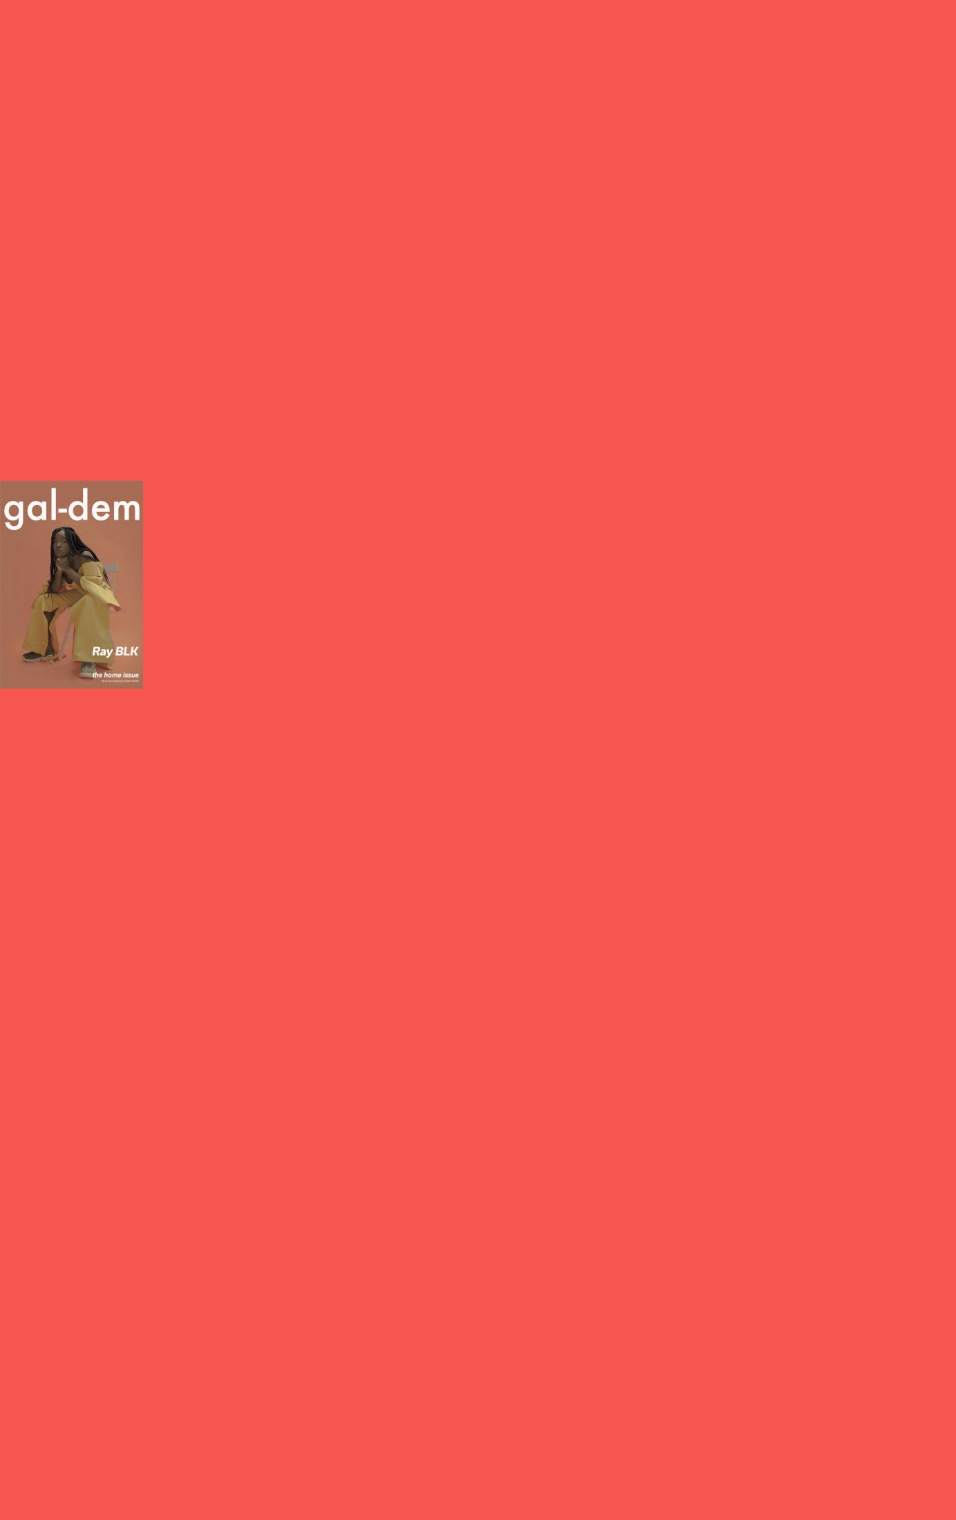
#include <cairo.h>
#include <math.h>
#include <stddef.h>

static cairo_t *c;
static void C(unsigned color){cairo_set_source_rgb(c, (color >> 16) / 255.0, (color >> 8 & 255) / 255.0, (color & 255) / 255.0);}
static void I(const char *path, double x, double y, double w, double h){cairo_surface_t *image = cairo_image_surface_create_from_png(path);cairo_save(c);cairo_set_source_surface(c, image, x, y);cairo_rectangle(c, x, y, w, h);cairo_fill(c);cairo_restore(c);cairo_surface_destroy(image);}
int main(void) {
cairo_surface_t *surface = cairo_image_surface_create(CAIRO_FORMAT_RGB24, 956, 1520);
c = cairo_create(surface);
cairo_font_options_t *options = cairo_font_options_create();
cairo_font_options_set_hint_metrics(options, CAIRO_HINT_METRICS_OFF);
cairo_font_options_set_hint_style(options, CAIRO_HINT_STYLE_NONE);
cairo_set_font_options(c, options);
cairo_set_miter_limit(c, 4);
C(0xf75550);
cairo_paint(c);
I("1.png",0,480,143,209);
cairo_surface_write_to_png(surface, "o.png");
cairo_font_options_destroy(options);
cairo_destroy(c);
cairo_surface_destroy(surface);
return 0;
}
